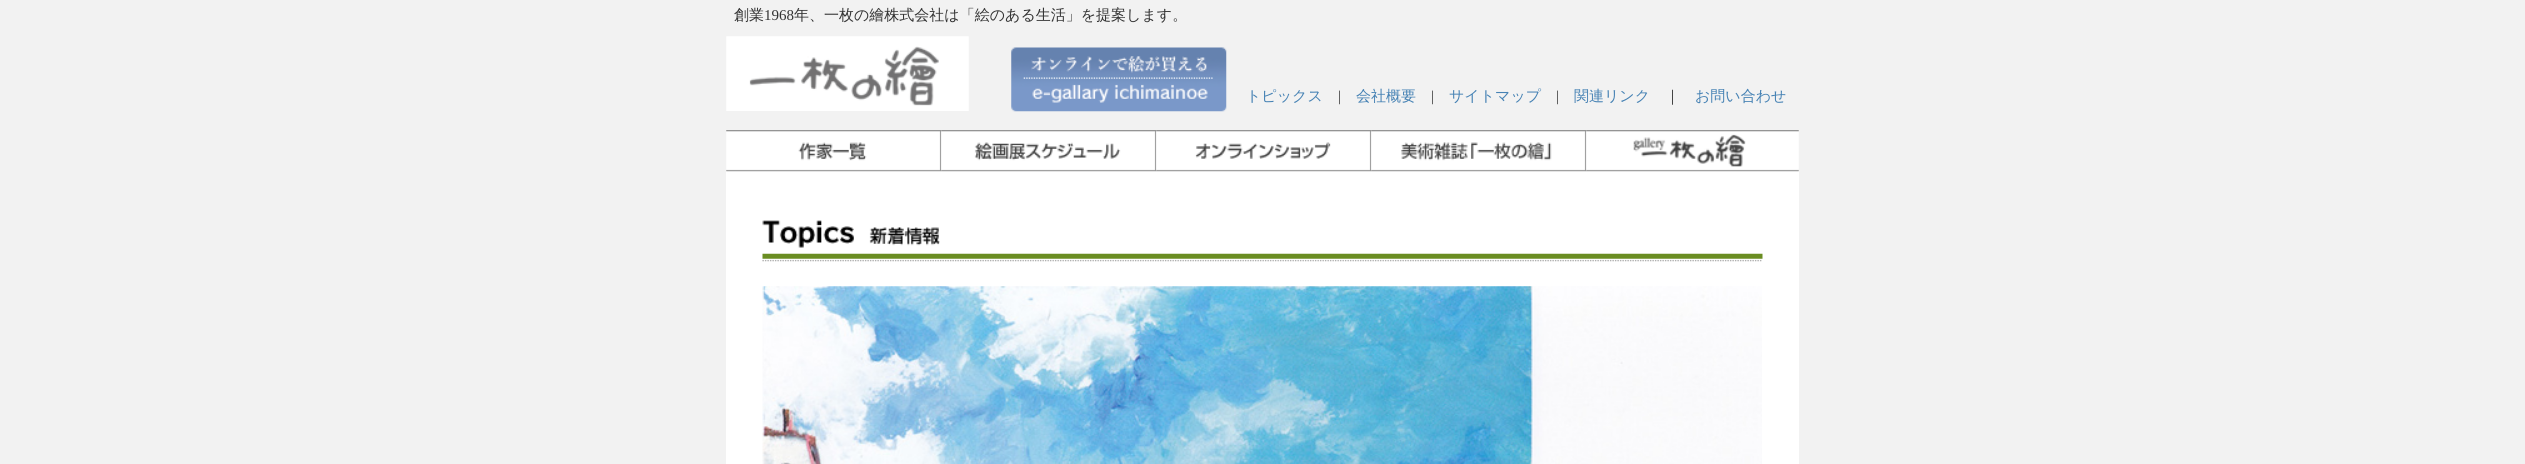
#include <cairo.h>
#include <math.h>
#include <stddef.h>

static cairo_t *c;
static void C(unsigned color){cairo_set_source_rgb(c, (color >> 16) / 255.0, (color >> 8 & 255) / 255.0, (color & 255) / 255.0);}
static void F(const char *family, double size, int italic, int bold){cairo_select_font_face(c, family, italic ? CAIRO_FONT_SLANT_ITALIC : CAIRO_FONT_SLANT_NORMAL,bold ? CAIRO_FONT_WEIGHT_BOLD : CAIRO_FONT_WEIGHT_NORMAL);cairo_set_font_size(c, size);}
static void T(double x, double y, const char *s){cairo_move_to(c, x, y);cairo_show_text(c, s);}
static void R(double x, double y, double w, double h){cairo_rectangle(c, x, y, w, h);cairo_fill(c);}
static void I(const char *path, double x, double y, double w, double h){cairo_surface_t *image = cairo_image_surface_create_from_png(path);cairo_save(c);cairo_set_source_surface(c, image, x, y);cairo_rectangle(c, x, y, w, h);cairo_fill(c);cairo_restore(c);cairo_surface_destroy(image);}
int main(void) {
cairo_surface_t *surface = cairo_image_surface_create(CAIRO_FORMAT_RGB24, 2525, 464);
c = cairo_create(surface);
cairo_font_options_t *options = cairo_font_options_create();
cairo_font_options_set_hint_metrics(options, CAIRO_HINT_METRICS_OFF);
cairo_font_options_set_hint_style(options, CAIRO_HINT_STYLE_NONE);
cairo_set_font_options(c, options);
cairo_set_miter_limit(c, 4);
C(0xf2f2f2);
cairo_paint(c);
F("WenQuanYi Zen Hei Medium",15,0,0);
C(0x333333);
T(734,20,"創業");
F("Liberation Serif",15,0,0);
T(764,20,"1968");
F("WenQuanYi Zen Hei Medium",15,0,0);
T(794,20,"年、一枚の繪株式会社は「絵のある生活」を提案します。");
I("1.png",726,36,243,75);
I("2.png",1011,47,216,65);
C(0x4682b4);
T(1246,101,"トピックス");
F("Liberation Serif",15,0,0);
C(0x333333);
T(1338,101,"|");
F("WenQuanYi Zen Hei Medium",15,0,0);
C(0x4682b4);
T(1356,101,"会社概要");
F("Liberation Serif",15,0,0);
C(0x333333);
T(1431,101,"|");
F("WenQuanYi Zen Hei Medium",15,0,0);
C(0x4682b4);
T(1449,101,"サイトマップ");
F("Liberation Serif",15,0,0);
C(0x333333);
T(1556,101,"|");
F("WenQuanYi Zen Hei Medium",15,0,0);
C(0x4682b4);
T(1574,101,"関連リンク");
C(0x333333);
T(1665,101,"｜");
C(0x4682b4);
T(1695,101,"お問い合わせ");
C(0xffffff);
R(726,171,1073,293);
I("3.png",726,130,216,42);
I("4.png",941,130,216,42);
I("5.png",1156,130,216,42);
I("6.png",1371,130,216,42);
I("7.png",1586,130,213,42);
I("8.png",762,220,178,28);
I("9.png",762,253,1001,9);
I("10.png",762,286,1000,178);
cairo_surface_write_to_png(surface, "o.png");
cairo_font_options_destroy(options);
cairo_destroy(c);
cairo_surface_destroy(surface);
return 0;
}
